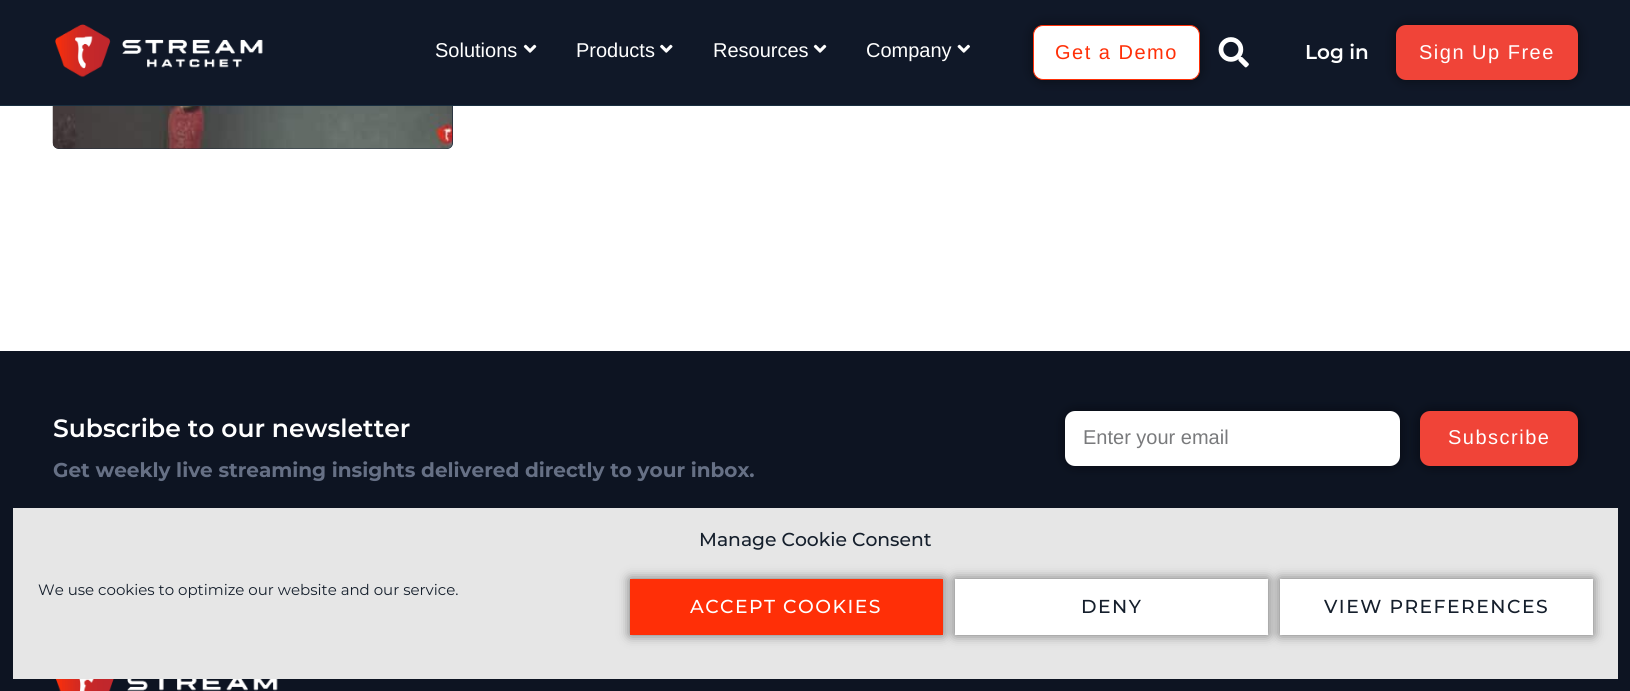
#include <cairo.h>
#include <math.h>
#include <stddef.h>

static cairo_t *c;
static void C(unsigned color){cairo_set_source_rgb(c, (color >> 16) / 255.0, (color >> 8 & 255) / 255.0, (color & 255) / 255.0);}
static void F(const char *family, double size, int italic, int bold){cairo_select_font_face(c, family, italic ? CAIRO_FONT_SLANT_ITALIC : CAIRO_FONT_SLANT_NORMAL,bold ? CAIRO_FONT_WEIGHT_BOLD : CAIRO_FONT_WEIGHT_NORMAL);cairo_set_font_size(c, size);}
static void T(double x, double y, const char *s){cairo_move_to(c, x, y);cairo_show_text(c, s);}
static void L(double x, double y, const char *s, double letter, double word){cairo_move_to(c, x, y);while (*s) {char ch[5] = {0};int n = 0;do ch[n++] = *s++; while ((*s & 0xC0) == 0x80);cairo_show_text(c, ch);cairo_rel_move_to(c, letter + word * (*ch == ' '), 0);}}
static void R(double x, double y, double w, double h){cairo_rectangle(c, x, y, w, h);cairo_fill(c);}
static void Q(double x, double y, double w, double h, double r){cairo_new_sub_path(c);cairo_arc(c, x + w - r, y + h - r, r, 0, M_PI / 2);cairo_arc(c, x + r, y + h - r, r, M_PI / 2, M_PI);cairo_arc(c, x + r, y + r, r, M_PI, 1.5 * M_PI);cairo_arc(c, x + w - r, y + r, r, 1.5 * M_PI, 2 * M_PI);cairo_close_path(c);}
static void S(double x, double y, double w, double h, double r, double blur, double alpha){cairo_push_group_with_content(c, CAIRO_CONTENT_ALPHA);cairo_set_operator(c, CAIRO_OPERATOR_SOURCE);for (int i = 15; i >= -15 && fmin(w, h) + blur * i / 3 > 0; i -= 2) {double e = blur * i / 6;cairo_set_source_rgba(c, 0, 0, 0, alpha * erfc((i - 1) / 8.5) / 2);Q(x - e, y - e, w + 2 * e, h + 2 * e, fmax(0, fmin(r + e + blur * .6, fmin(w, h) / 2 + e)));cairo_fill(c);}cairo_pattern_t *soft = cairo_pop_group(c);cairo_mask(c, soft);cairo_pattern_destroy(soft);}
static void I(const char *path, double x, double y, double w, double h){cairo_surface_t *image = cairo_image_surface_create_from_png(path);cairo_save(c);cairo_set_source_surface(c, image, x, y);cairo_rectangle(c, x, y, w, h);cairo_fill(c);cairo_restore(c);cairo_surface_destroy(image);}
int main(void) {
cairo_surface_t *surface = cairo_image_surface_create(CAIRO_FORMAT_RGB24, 1630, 691);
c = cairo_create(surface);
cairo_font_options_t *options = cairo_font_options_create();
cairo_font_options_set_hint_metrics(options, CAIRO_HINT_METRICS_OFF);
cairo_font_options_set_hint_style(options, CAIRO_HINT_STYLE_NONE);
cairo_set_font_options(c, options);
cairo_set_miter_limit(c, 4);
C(0xffffff);
cairo_paint(c);
C(0x1d2939);
Q(53,-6,400,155,6);
cairo_fill(c);
I("1.png",52,106,401,43);
C(0x101828);
R(0,0,1630,105);
C(0x1a2f40);
R(0,105,1630,1);
I("2.png",55,24,208,54);
F("Liberation Sans",20,0,0);
C(0xffffff);
T(435,57,"Solutions");
I("3.png",523,44,14,9);
T(576,57,"Products");
I("4.png",660,44,13,9);
T(713,57,"Resources");
I("3.png",813,44,14,9);
T(866,57,"Company");
I("5.png",957,44,13,9);
C(0x000000);
S(1033,25,167,55,10,6,.5);
C(0xffffff);
Q(1033.5,25.5,166,54,9.5);
cairo_fill_preserve(c);
C(0xff2f07);
cairo_set_line_width(c,1);
cairo_stroke(c);
L(1055,59,"Get a Demo",1.5,0);
I("6.png",1218,37,31,31);
F("Montserrat SemiBold",20,0,0);
C(0xffffff);
T(1305,59,"Log in");
C(0x000000);
S(1396,25,182,55,10,6,.5);
C(0xf04438);
Q(1396,25,182,55,10);
cairo_fill(c);
F("Liberation Sans",20,0,0);
C(0xffffff);
L(1419,59,"Sign Up Free",1.5,0);
C(0x0d1422);
R(0,351,1630,340);
I("7.png",55,679,223,12);
F("Montserrat SemiBold",25,0,0);
C(0xffffff);
T(53,437,"Subscribe to our newsletter");
F("Montserrat",20,0,1);
C(0x667085);
T(53,477,"Get weekly live streaming insights delivered directly to your inbox.");
C(0x000000);
S(1065,411,335,55,10,6,.5);
C(0xffffff);
Q(1065,411,335,55,10);
cairo_fill(c);
F("Liberation Sans",20,0,0);
C(0x797a7c);
T(1083,444,"Enter your email");
C(0x000000);
S(1420,411,158,55,10,6,.5);
C(0xf04438);
Q(1420,411,158,55,10);
cairo_fill(c);
C(0xffffff);
L(1448,444,"Subscribe",1.5,0);
C(0xe6e6e6);
R(13,508,1605,171);
F("Montserrat Medium",18.75,0,0);
C(0x151f2c);
T(699,546,"Manage Cookie Consent");
F("Montserrat",15,0,0);
T(38,595,"We use cookies to optimize our website and our service.");
C(0x000000);
S(630,579,313,56,0,6,.5);
C(0xff2f07);
R(630,579,313,56);
F("Montserrat Medium",18.75,0,0);
C(0xffffff);
L(690,613,"ACCEPT COOKIES",1.5,0);
C(0x000000);
S(955,579,313,56,0,6,.5);
C(0xffffff);
R(955,579,313,56);
C(0x151f2c);
L(1081,613,"DENY",1.5,0);
C(0x000000);
S(1280,579,313,56,0,6,.5);
C(0xffffff);
R(1280,579,313,56);
C(0x151f2c);
L(1324,613,"VIEW PREFERENCES",1.5,0);
cairo_surface_write_to_png(surface, "o.png");
cairo_font_options_destroy(options);
cairo_destroy(c);
cairo_surface_destroy(surface);
return 0;
}
